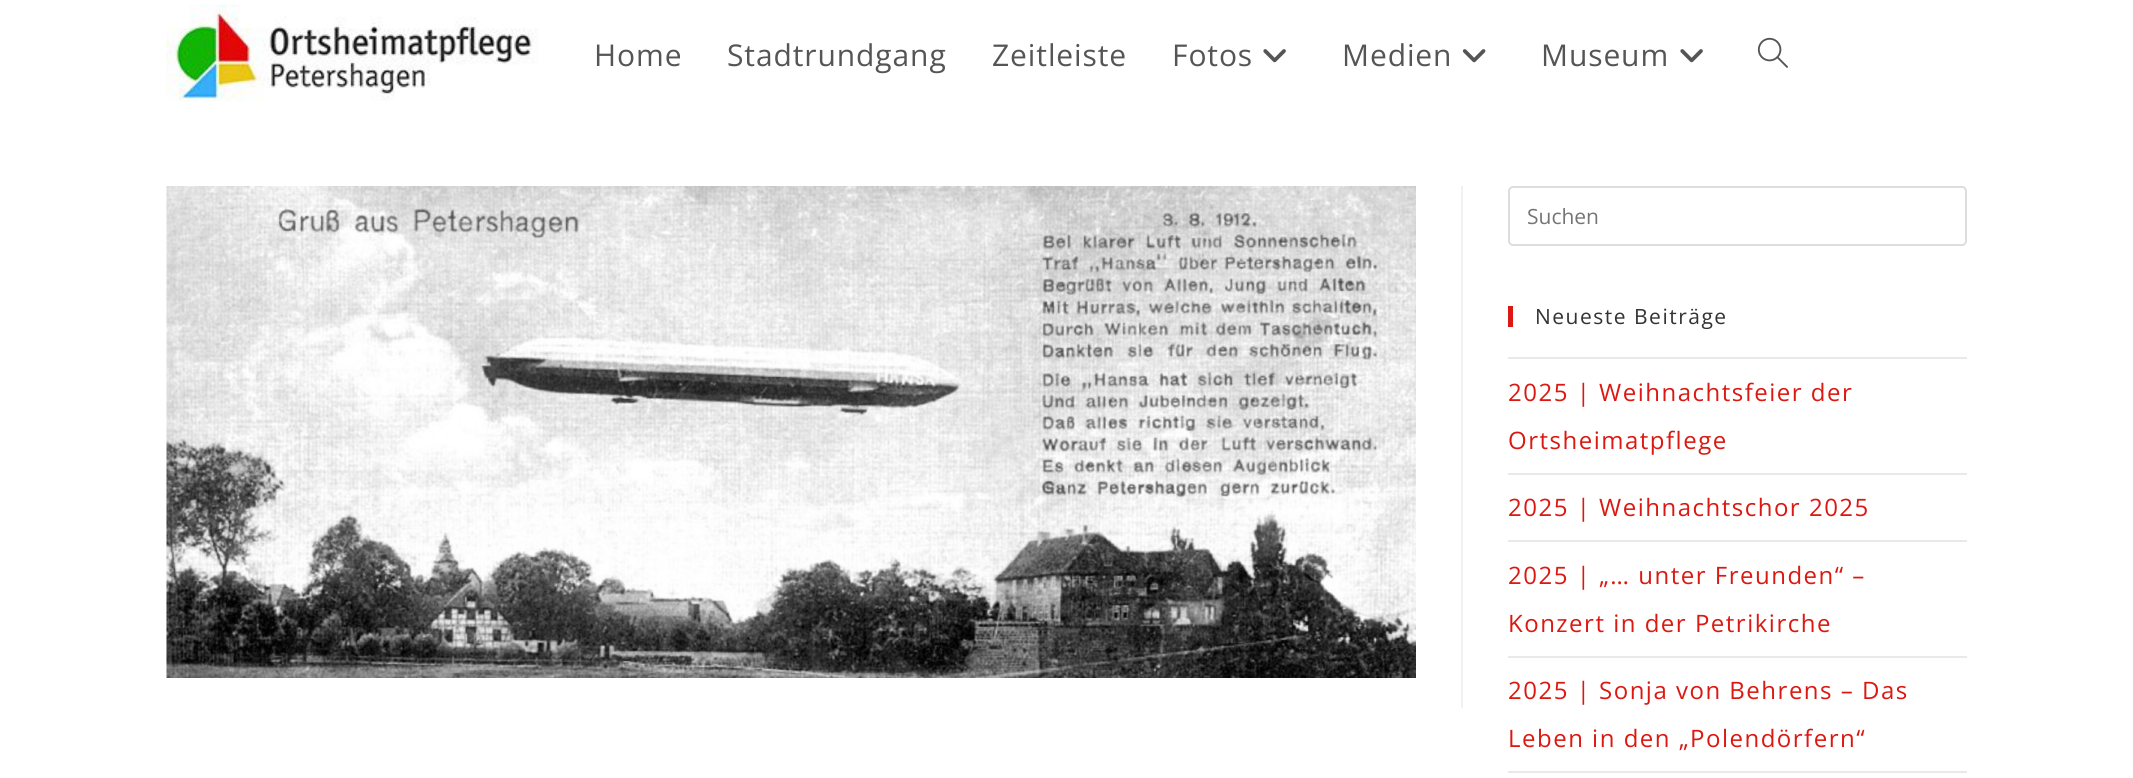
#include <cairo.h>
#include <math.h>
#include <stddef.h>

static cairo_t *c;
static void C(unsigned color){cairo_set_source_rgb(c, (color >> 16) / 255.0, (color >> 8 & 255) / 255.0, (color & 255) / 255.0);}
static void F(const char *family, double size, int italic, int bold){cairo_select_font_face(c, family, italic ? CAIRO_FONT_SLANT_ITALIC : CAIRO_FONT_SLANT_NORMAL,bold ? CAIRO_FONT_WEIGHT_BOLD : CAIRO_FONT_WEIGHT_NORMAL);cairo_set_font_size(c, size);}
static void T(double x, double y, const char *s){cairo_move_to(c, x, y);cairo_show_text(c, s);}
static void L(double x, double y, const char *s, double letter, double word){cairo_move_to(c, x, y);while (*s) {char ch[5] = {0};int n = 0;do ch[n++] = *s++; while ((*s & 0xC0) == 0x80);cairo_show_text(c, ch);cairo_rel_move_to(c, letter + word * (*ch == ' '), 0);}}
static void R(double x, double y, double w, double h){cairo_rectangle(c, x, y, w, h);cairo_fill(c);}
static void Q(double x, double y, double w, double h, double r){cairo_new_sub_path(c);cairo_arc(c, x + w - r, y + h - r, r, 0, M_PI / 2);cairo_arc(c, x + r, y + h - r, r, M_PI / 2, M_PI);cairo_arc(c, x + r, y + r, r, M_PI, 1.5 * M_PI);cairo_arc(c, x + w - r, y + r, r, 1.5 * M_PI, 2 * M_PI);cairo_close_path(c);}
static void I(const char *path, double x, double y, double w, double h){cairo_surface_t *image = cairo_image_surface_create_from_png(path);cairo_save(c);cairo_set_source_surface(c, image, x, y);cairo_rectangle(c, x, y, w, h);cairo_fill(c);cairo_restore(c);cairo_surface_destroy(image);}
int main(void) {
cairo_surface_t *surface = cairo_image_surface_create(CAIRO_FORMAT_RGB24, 2133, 778);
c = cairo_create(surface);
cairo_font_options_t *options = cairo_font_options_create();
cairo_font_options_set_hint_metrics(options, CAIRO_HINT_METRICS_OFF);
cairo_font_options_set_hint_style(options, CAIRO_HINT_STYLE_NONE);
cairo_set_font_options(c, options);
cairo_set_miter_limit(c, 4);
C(0xffffff);
cairo_paint(c);
I("1.png",166,4,372,98);
F("Open Sans",30,0,0);
C(0x555555);
L(594,66,"Home",.9,0);
L(727,66,"Stadtrundgang",.9,0);
L(992,66,"Zeitleiste",.9,0);
L(1172,66,"Fotos",.9,0);
I("2.png",1263,49,23,14);
L(1342,66,"Medien",.9,0);
I("3.png",1462,49,24,14);
L(1541,66,"Museum",.9,0);
I("2.png",1680,49,23,14);
I("4.png",1757,37,31,31);
C(0xf1f1f1);
R(1461,186,2,522);
I("5.png",166,186,1250,492);
Q(1509,187,457,58,4);
C(0xdddddd);
cairo_stroke(c);
F("Open Sans",21,0,0);
C(0x757575);
T(1527,224,"Suchen");
C(0xdb1811);
R(1508,306,5,21);
C(0x333333);
L(1535,324,"Neueste Beiträge",1.5,0);
C(0xe9e9e9);
R(1508,357,459,2);
R(1508,473,459,2);
F("Open Sans",24,0,0);
C(0xdb1811);
L(1508,401,"2025 | Weihnachtsfeier der",1.5,0);
L(1508,449,"Ortsheimatpflege",1.5,0);
C(0xe9e9e9);
R(1508,540,459,2);
C(0xdb1811);
L(1508,516,"2025 | Weihnachtschor 2025",1.5,0);
C(0xe9e9e9);
R(1508,656,459,2);
C(0xdb1811);
L(1508,584,"2025 | „… unter Freunden“ –",1.5,0);
L(1508,632,"Konzert in der Petrikirche",1.5,0);
C(0xe9e9e9);
R(1508,771,459,2);
C(0xdb1811);
L(1508,699,"2025 | Sonja von Behrens – Das",1.5,0);
L(1508,747,"Leben in den „Polendörfern“",1.5,0);
cairo_surface_write_to_png(surface, "o.png");
cairo_font_options_destroy(options);
cairo_destroy(c);
cairo_surface_destroy(surface);
return 0;
}
